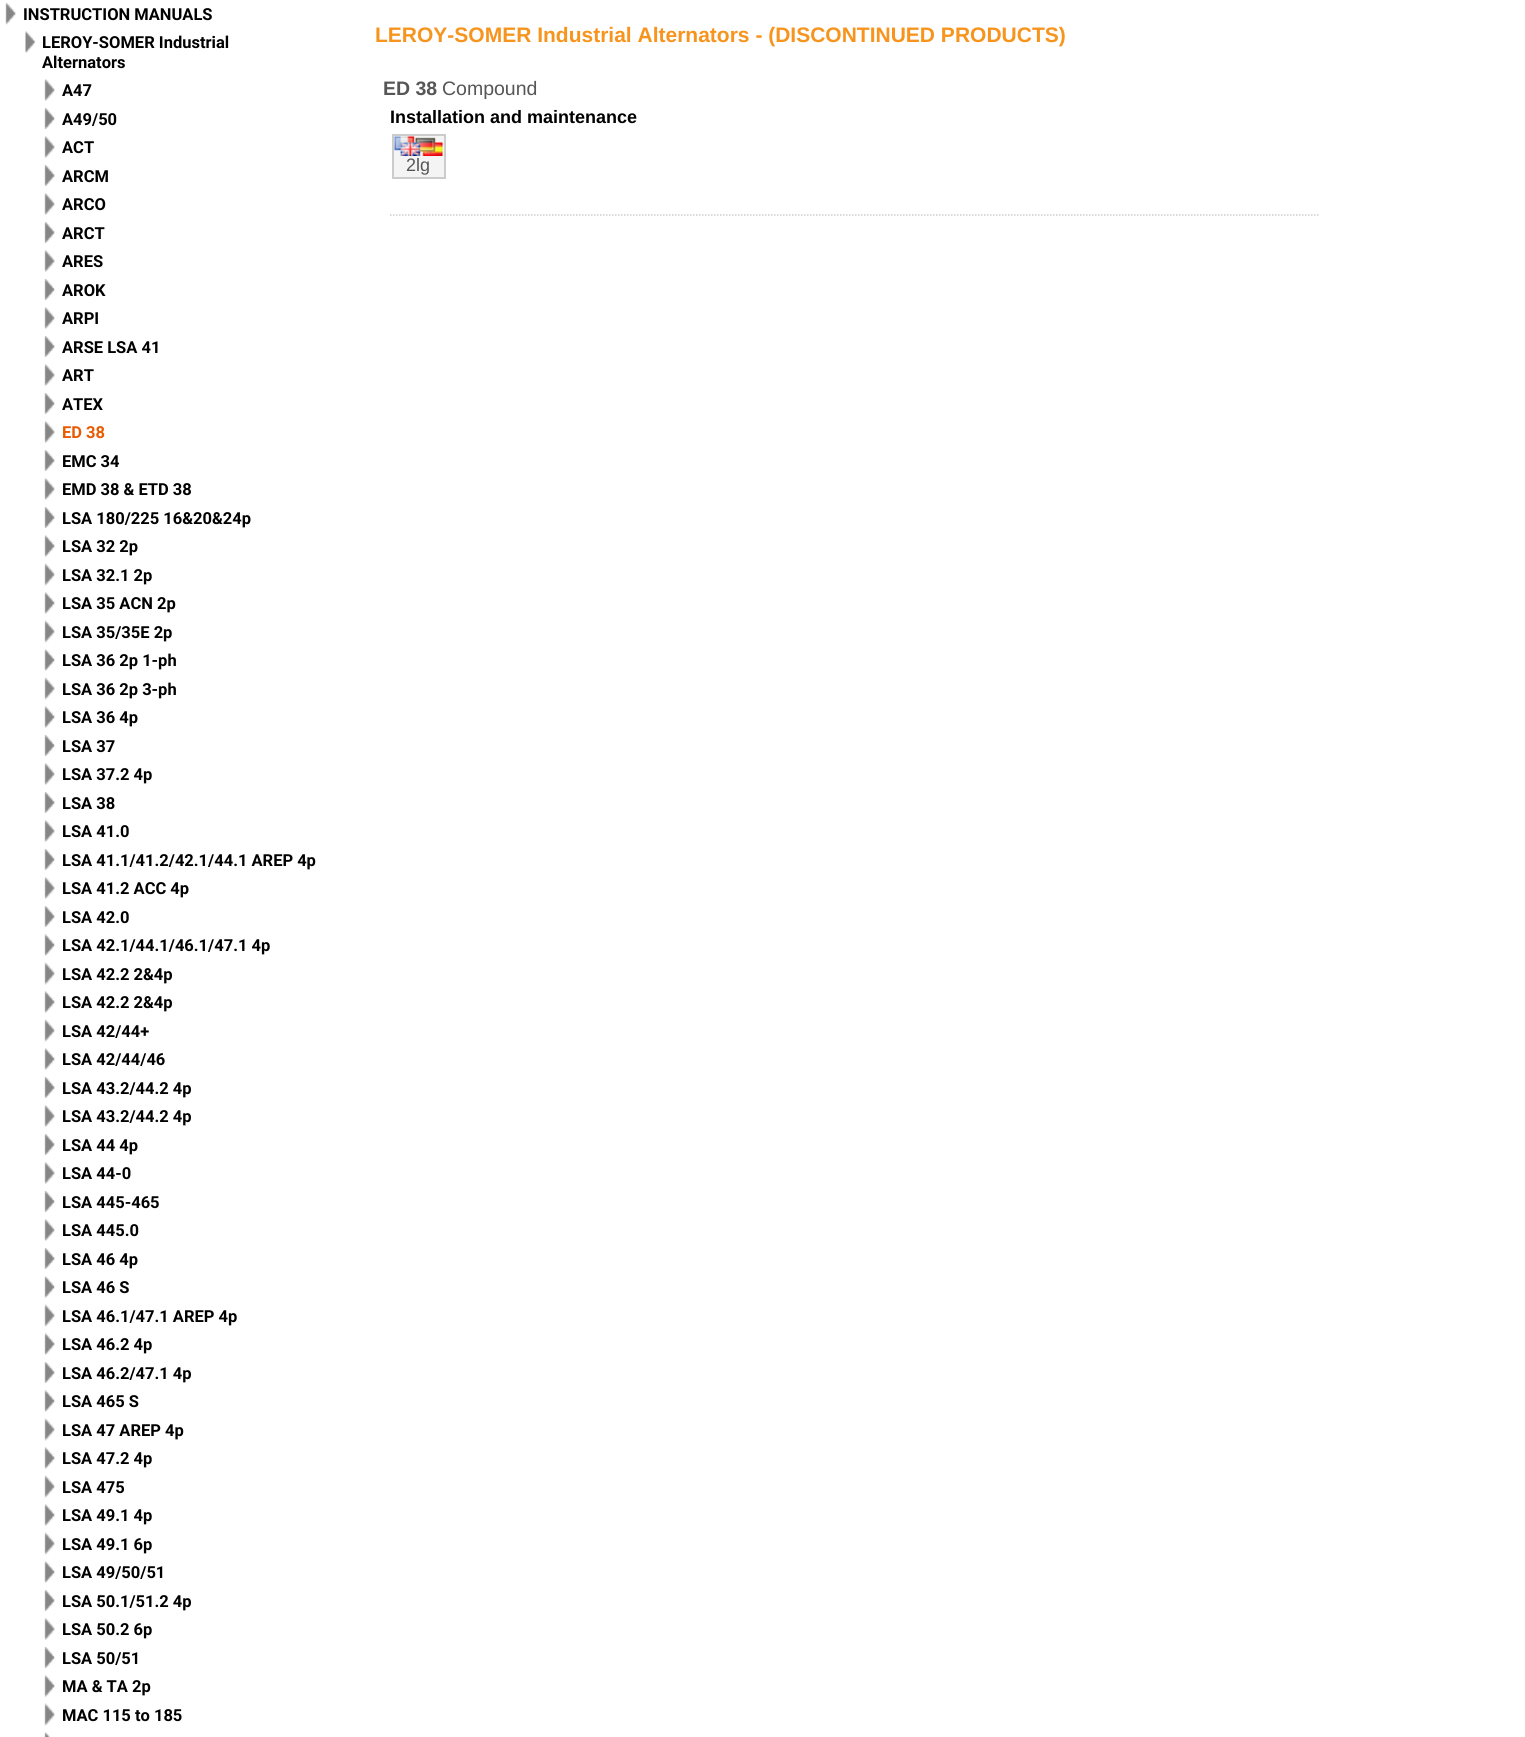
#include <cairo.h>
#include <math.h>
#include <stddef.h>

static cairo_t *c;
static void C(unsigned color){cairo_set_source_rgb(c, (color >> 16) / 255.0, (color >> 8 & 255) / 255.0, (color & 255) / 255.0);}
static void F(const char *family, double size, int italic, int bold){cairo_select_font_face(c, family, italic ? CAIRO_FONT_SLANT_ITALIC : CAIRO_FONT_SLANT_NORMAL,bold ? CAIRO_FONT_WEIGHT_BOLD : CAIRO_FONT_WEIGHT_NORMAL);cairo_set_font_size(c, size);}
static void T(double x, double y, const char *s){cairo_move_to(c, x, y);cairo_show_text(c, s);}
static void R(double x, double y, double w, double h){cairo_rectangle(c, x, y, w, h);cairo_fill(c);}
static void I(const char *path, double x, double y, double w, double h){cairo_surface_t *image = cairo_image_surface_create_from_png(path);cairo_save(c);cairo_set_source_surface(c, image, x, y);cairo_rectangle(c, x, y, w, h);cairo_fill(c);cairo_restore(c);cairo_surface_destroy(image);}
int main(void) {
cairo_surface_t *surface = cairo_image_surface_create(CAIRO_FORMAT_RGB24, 1525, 1737);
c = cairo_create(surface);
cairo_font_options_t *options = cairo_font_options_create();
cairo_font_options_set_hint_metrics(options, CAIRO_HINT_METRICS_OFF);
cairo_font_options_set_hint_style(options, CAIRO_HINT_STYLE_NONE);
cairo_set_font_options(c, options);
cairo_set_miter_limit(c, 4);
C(0xffffff);
cairo_paint(c);
I("1.png",5,2,11,23);
F("Roboto",16.5,0,1);
C(0x000000);
T(23,20,"INSTRUCTION MANUALS");
I("2.png",25,31,11,22);
T(42,48,"LEROY-SOMER Industrial");
T(42,68,"Alternators");
I("3.png",44,79,11,22);
T(62,96,"A47");
I("4.png",44,108,11,21);
T(62,125,"A49/50");
I("3.png",44,136,11,22);
T(62,153,"ACT");
I("4.png",44,165,11,21);
T(62,182,"ARCM");
I("3.png",44,193,11,22);
T(62,210,"ARCO");
I("4.png",44,222,11,21);
T(62,239,"ARCT");
I("3.png",44,250,11,22);
T(62,267,"ARES");
I("4.png",44,279,11,21);
T(62,296,"AROK");
I("3.png",44,307,11,22);
T(62,324,"ARPI");
I("4.png",44,336,11,21);
T(62,353,"ARSE LSA 41");
I("3.png",44,364,11,22);
T(62,381,"ART");
I("4.png",44,393,11,21);
T(62,410,"ATEX");
I("3.png",44,421,11,22);
C(0xea5a00);
T(62,438,"ED 38");
I("4.png",44,450,11,21);
C(0x000000);
T(62,467,"EMC 34");
I("3.png",44,478,11,22);
T(62,495,"EMD 38 & ETD 38");
I("4.png",44,507,11,21);
T(62,524,"LSA 180/225 16&20&24p");
I("5.png",44,535,11,22);
T(62,552,"LSA 32 2p");
I("6.png",44,563,11,23);
T(62,581,"LSA 32.1 2p");
I("5.png",44,592,11,22);
T(62,609,"LSA 35 ACN 2p");
I("6.png",44,620,11,23);
T(62,638,"LSA 35/35E 2p");
I("5.png",44,649,11,22);
T(62,666,"LSA 36 2p 1-ph");
I("6.png",44,677,11,23);
T(62,695,"LSA 36 2p 3-ph");
I("5.png",44,706,11,22);
T(62,723,"LSA 36 4p");
I("4.png",44,735,11,21);
T(62,752,"LSA 37");
I("3.png",44,763,11,22);
T(62,780,"LSA 37.2 4p");
I("4.png",44,792,11,21);
T(62,809,"LSA 38");
I("3.png",44,820,11,22);
T(62,837,"LSA 41.0");
I("4.png",44,849,11,21);
T(62,866,"LSA 41.1/41.2/42.1/44.1 AREP 4p");
I("3.png",44,877,11,22);
T(62,894,"LSA 41.2 ACC 4p");
I("4.png",44,906,11,21);
T(62,923,"LSA 42.0");
I("5.png",44,934,11,22);
T(62,951,"LSA 42.1/44.1/46.1/47.1 4p");
I("6.png",44,962,11,23);
T(62,980,"LSA 42.2 2&4p");
I("5.png",44,991,11,22);
T(62,1008,"LSA 42.2 2&4p");
I("6.png",44,1019,11,23);
T(62,1037,"LSA 42/44+");
I("5.png",44,1048,11,22);
T(62,1065,"LSA 42/44/46");
I("4.png",44,1077,11,21);
T(62,1094,"LSA 43.2/44.2 4p");
I("3.png",44,1105,11,22);
T(62,1122,"LSA 43.2/44.2 4p");
I("4.png",44,1134,11,21);
T(62,1151,"LSA 44 4p");
I("3.png",44,1162,11,22);
T(62,1179,"LSA 44-0");
I("4.png",44,1191,11,21);
T(62,1208,"LSA 445-465");
I("3.png",44,1219,11,22);
T(62,1236,"LSA 445.0");
I("4.png",44,1248,11,21);
T(62,1265,"LSA 46 4p");
I("5.png",44,1276,11,22);
T(62,1293,"LSA 46 S");
I("6.png",44,1304,11,23);
T(62,1322,"LSA 46.1/47.1 AREP 4p");
I("5.png",44,1333,11,22);
T(62,1350,"LSA 46.2 4p");
I("4.png",44,1362,11,21);
T(62,1379,"LSA 46.2/47.1 4p");
I("5.png",44,1390,11,22);
T(62,1407,"LSA 465 S");
I("6.png",44,1418,11,23);
T(62,1436,"LSA 47 AREP 4p");
I("5.png",44,1447,11,22);
T(62,1464,"LSA 47.2 4p");
I("6.png",44,1475,11,23);
T(62,1493,"LSA 475");
I("5.png",44,1504,11,22);
T(62,1521,"LSA 49.1 4p");
I("6.png",44,1532,11,23);
T(62,1550,"LSA 49.1 6p");
I("5.png",44,1561,11,22);
T(62,1578,"LSA 49/50/51");
I("4.png",44,1590,11,21);
T(62,1607,"LSA 50.1/51.2 4p");
I("3.png",44,1618,11,22);
T(62,1635,"LSA 50.2 6p");
I("4.png",44,1647,11,21);
T(62,1664,"LSA 50/51");
I("5.png",44,1675,11,22);
T(62,1692,"MA & TA 2p");
I("6.png",44,1703,11,23);
T(62,1721,"MAC 115 to 185");
I("7.png",44,1732,6,5);
F("Liberation Sans",21,0,1);
C(0xf7941d);
T(375,42,"LEROY-SOMER Industrial Alternators - (DISCONTINUED PRODUCTS)");
F("Liberation Sans",19.5,0,1);
C(0x565656);
T(383,95,"ED 38");
F("Liberation Sans",19.5,0,0);
T(442,95,"Compound");
cairo_new_path(c);
cairo_move_to(c,390,215);
cairo_line_to(c,1320,215);
C(0xcccccc);
cairo_set_line_width(c,1.5);
cairo_set_dash(c,(double[]){1.5,1.5},2,0);
cairo_stroke(c);
F("Liberation Sans",18,0,1);
C(0x000000);
T(390,123,"Installation and maintenance");
C(0xf4f4f4);
R(394,136,50,41);
I("8.png",394,136,49,20);
cairo_rectangle(c,393,135,52,43);
C(0xcccccc);
cairo_set_line_width(c,2);
cairo_set_dash(c,NULL,0,0);
cairo_stroke(c);
F("Liberation Sans",18,0,0);
C(0x565656);
T(406,171,"2lg");
cairo_surface_write_to_png(surface, "o.png");
cairo_font_options_destroy(options);
cairo_destroy(c);
cairo_surface_destroy(surface);
return 0;
}
